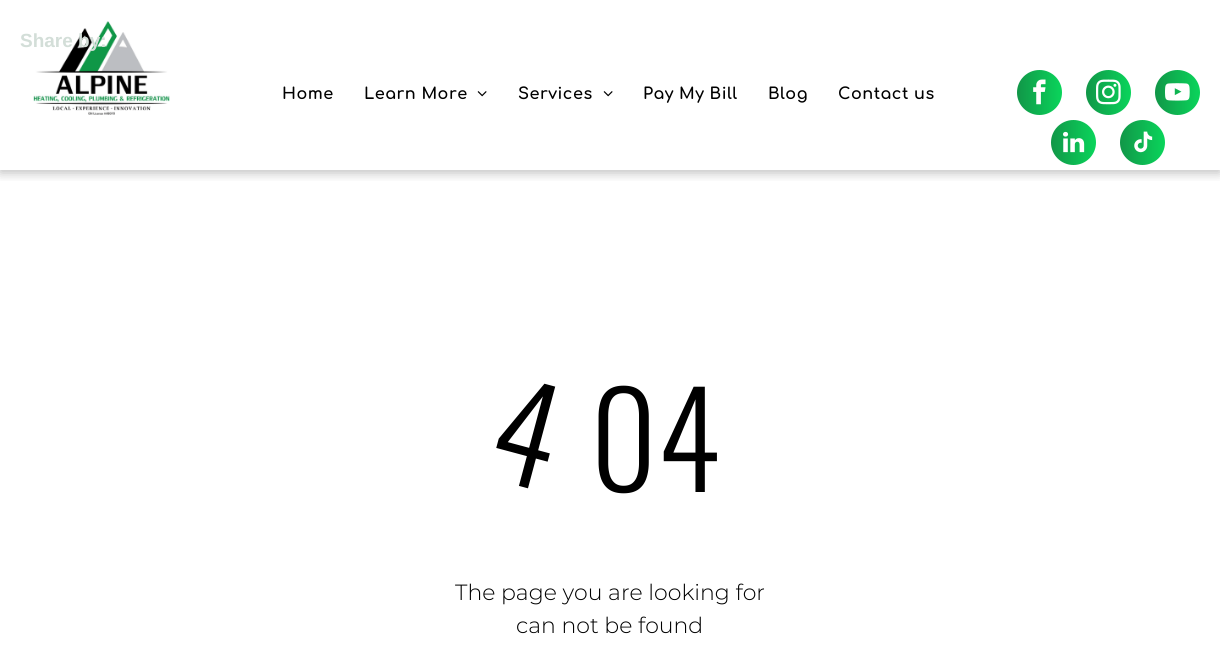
#include <cairo.h>
#include <math.h>
#include <stddef.h>

static cairo_t *c;
static void C(unsigned color){cairo_set_source_rgb(c, (color >> 16) / 255.0, (color >> 8 & 255) / 255.0, (color & 255) / 255.0);}
static void F(const char *family, double size, int italic, int bold){cairo_select_font_face(c, family, italic ? CAIRO_FONT_SLANT_ITALIC : CAIRO_FONT_SLANT_NORMAL,bold ? CAIRO_FONT_WEIGHT_BOLD : CAIRO_FONT_WEIGHT_NORMAL);cairo_set_font_size(c, size);}
static void T(double x, double y, const char *s){cairo_move_to(c, x, y);cairo_show_text(c, s);}
static void L(double x, double y, const char *s, double letter, double word){cairo_move_to(c, x, y);while (*s) {char ch[5] = {0};int n = 0;do ch[n++] = *s++; while ((*s & 0xC0) == 0x80);cairo_show_text(c, ch);cairo_rel_move_to(c, letter + word * (*ch == ' '), 0);}}
static void Q(double x, double y, double w, double h, double r){cairo_new_sub_path(c);cairo_arc(c, x + w - r, y + h - r, r, 0, M_PI / 2);cairo_arc(c, x + r, y + h - r, r, M_PI / 2, M_PI);cairo_arc(c, x + r, y + r, r, M_PI, 1.5 * M_PI);cairo_arc(c, x + w - r, y + r, r, 1.5 * M_PI, 2 * M_PI);cairo_close_path(c);}
static void S(double x, double y, double w, double h, double r, double blur, double alpha){cairo_push_group_with_content(c, CAIRO_CONTENT_ALPHA);cairo_set_operator(c, CAIRO_OPERATOR_SOURCE);for (int i = 15; i >= -15 && fmin(w, h) + blur * i / 3 > 0; i -= 2) {double e = blur * i / 6;cairo_set_source_rgba(c, 0, 0, 0, alpha * erfc((i - 1) / 8.5) / 2);Q(x - e, y - e, w + 2 * e, h + 2 * e, fmax(0, fmin(r + e + blur * .6, fmin(w, h) / 2 + e)));cairo_fill(c);}cairo_pattern_t *soft = cairo_pop_group(c);cairo_mask(c, soft);cairo_pattern_destroy(soft);}
static void I(const char *path, double x, double y, double w, double h){cairo_surface_t *image = cairo_image_surface_create_from_png(path);cairo_save(c);cairo_set_source_surface(c, image, x, y);cairo_rectangle(c, x, y, w, h);cairo_fill(c);cairo_restore(c);cairo_surface_destroy(image);}
int main(void) {
cairo_surface_t *surface = cairo_image_surface_create(CAIRO_FORMAT_RGB24, 1220, 652);
c = cairo_create(surface);
cairo_font_options_t *options = cairo_font_options_create();
cairo_font_options_set_hint_metrics(options, CAIRO_HINT_METRICS_OFF);
cairo_font_options_set_hint_style(options, CAIRO_HINT_STYLE_NONE);
cairo_set_font_options(c, options);
cairo_set_miter_limit(c, 4);
cairo_pattern_t *gradient;
C(0xffffff);
cairo_paint(c);
cairo_save(c);
cairo_rectangle(c,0,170,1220,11);
cairo_clip(c);
C(0x000000);
S(0,3,1220,170,0,5.5,.25);
cairo_restore(c);
I("1.png",33,21,137,94);
F("Liberation Sans",19,0,1);
C(0xd3ded8);
T(20,47,"Share by:");
F("Comfortaa",16,0,1);
C(0x000000);
L(282,99,"Home",.5,0);
L(364,99,"Learn More",.5,0);
I("2.png",477,91,10,6);
L(518,99,"Services",.5,0);
I("2.png",603,91,10,6);
L(643,99,"Pay My Bill",.5,0);
L(768,99,"Blog",.5,0);
L(838,99,"Contact us",.5,0);
gradient = cairo_pattern_create_linear(1017,93,1062,93);
cairo_pattern_add_color_stop_rgba(gradient,.01,0.067,0.592,0.282,1);
cairo_pattern_add_color_stop_rgba(gradient,1,0.039,0.835,0.357,1);
cairo_set_source(c,gradient);
cairo_pattern_destroy(gradient);
cairo_new_path(c);
cairo_arc(c,1039.5,92.5,22.5,0,2 * M_PI);
cairo_fill(c);
I("3.png",1033,79,13,26);
gradient = cairo_pattern_create_linear(1086,93,1131,93);
cairo_pattern_add_color_stop_rgba(gradient,.01,0.067,0.592,0.282,1);
cairo_pattern_add_color_stop_rgba(gradient,1,0.039,0.835,0.357,1);
cairo_set_source(c,gradient);
cairo_pattern_destroy(gradient);
cairo_arc(c,1108.5,92.5,22.5,0,2 * M_PI);
cairo_fill(c);
I("4.png",1096,79,25,26);
gradient = cairo_pattern_create_linear(1155,93,1200,93);
cairo_pattern_add_color_stop_rgba(gradient,.01,0.067,0.592,0.282,1);
cairo_pattern_add_color_stop_rgba(gradient,1,0.039,0.835,0.357,1);
cairo_set_source(c,gradient);
cairo_pattern_destroy(gradient);
cairo_arc(c,1177.5,92.5,22.5,0,2 * M_PI);
cairo_fill(c);
I("5.png",1165,83,25,18);
gradient = cairo_pattern_create_linear(1051,143,1096,143);
cairo_pattern_add_color_stop_rgba(gradient,.01,0.067,0.592,0.282,1);
cairo_pattern_add_color_stop_rgba(gradient,1,0.039,0.835,0.357,1);
cairo_set_source(c,gradient);
cairo_pattern_destroy(gradient);
cairo_arc(c,1073.5,142.5,22.5,0,2 * M_PI);
cairo_fill(c);
I("6.png",1063,131,22,22);
gradient = cairo_pattern_create_linear(1120,143,1165,143);
cairo_pattern_add_color_stop_rgba(gradient,.01,0.067,0.592,0.282,1);
cairo_pattern_add_color_stop_rgba(gradient,1,0.039,0.835,0.357,1);
cairo_set_source(c,gradient);
cairo_pattern_destroy(gradient);
cairo_arc(c,1142.5,142.5,22.5,0,2 * M_PI);
cairo_fill(c);
I("7.png",1134,131,19,22);
F("Oswald Light",130,0,0);
C(0x000000);
cairo_save(c);
cairo_translate(c,482,476);
cairo_rotate(c,15 * M_PI / 180);
T(0,0,"4");
cairo_restore(c);
T(590,492,"04");
F("Montserrat Light",22,0,0);
T(455,600,"The page you are looking for");
T(516,633,"can not be found");
cairo_surface_write_to_png(surface, "o.png");
cairo_font_options_destroy(options);
cairo_destroy(c);
cairo_surface_destroy(surface);
return 0;
}
